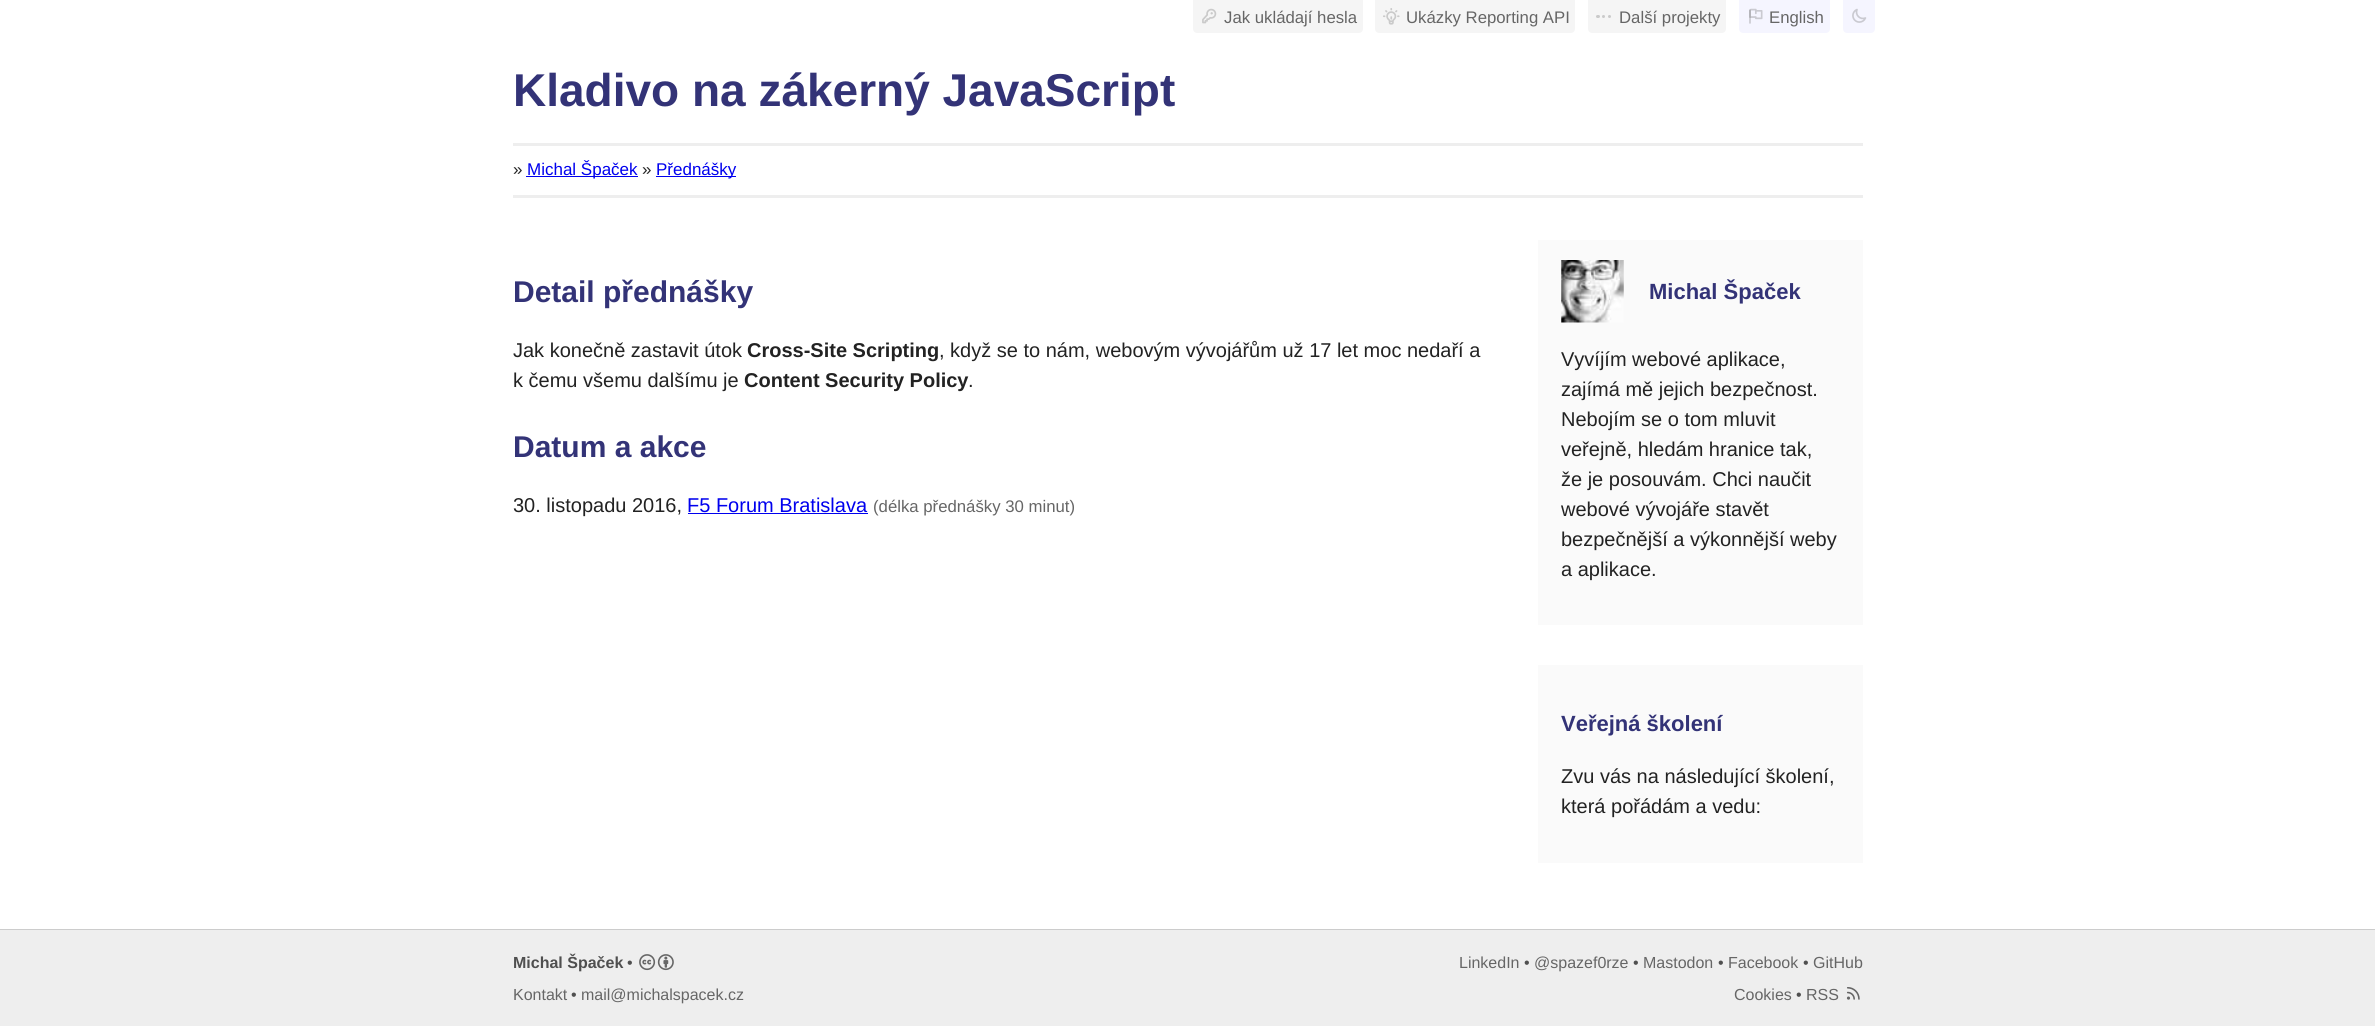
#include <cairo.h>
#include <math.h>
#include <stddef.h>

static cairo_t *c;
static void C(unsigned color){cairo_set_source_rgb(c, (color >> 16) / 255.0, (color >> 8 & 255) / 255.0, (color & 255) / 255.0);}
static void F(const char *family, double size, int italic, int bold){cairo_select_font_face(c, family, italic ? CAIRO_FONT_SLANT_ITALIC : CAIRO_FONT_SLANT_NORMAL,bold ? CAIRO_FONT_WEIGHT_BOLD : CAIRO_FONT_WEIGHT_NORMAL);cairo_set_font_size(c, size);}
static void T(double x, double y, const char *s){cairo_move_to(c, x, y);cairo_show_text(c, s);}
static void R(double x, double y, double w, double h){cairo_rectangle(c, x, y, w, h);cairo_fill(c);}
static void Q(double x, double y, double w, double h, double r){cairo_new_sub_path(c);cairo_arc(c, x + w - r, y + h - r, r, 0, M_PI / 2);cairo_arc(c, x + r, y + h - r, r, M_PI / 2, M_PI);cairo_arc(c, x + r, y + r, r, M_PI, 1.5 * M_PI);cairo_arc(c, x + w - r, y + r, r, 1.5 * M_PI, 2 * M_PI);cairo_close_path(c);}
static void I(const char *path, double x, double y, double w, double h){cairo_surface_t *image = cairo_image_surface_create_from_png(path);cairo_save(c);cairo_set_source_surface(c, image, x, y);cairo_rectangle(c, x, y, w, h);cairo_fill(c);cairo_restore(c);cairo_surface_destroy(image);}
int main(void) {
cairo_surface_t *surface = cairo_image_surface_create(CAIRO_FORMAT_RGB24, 2375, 1026);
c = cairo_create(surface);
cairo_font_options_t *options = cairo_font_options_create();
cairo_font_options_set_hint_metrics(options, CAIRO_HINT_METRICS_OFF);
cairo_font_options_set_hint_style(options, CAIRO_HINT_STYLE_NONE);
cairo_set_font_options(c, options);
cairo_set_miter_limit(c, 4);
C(0xffffff);
cairo_paint(c);
C(0xf5f5f5);
cairo_new_path(c);
cairo_move_to(c,1193,0);
cairo_line_to(c,1363,0);
cairo_line_to(c,1363,29);
cairo_curve_to(c,1363,31,1361,33,1359,33);
cairo_line_to(c,1197,33);
cairo_curve_to(c,1195,33,1193,31,1193,29);
cairo_close_path(c);
cairo_fill(c);
I("1.png",1202,8,15,16);
F("Liberation Sans",16.75,0,0);
C(0x666666);
T(1224,23,"Jak ukládají hesla");
C(0xf5f5f5);
cairo_new_path(c);
cairo_move_to(c,1375,0);
cairo_line_to(c,1575,0);
cairo_line_to(c,1575,29);
cairo_curve_to(c,1575,31,1573,33,1571,33);
cairo_line_to(c,1379,33);
cairo_curve_to(c,1377,33,1375,31,1375,29);
cairo_close_path(c);
cairo_fill(c);
I("2.png",1383,8,17,17);
C(0x666666);
T(1406,23,"Ukázky Reporting API");
C(0xf5f5f5);
cairo_new_path(c);
cairo_move_to(c,1588,0);
cairo_line_to(c,1726,0);
cairo_line_to(c,1726,29);
cairo_curve_to(c,1726,31,1724,33,1722,33);
cairo_line_to(c,1592,33);
cairo_curve_to(c,1590,33,1588,31,1588,29);
cairo_close_path(c);
cairo_fill(c);
C(0xcacaca);
Q(1596,15,4,3,1.5);
cairo_fill(c);
cairo_arc(c,1603.5,16.5,1.5,0,2 * M_PI);
cairo_fill(c);
cairo_arc(c,1609.5,16.5,1.5,0,2 * M_PI);
cairo_fill(c);
C(0x666666);
T(1619,23,"Další projekty");
C(0xf5f5ff);
cairo_new_path(c);
cairo_move_to(c,1739,0);
cairo_line_to(c,1830,0);
cairo_line_to(c,1830,29);
cairo_curve_to(c,1830,31,1828,33,1826,33);
cairo_line_to(c,1743,33);
cairo_curve_to(c,1741,33,1739,31,1739,29);
cairo_close_path(c);
cairo_fill(c);
I("3.png",1749,8,14,16);
C(0x666666);
T(1769,23,"English");
C(0xf5f5ff);
cairo_new_path(c);
cairo_move_to(c,1843,0);
cairo_line_to(c,1875,0);
cairo_line_to(c,1875,29);
cairo_curve_to(c,1875,31,1873,33,1871,33);
cairo_line_to(c,1847,33);
cairo_curve_to(c,1845,33,1843,31,1843,29);
cairo_close_path(c);
cairo_fill(c);
I("4.png",1852,8,15,15);
F("Liberation Sans",46,0,1);
C(0x333377);
T(513,106,"Kladivo na zákerný JavaScript");
C(0xeeeeee);
R(513,143,1350,3);
F("Liberation Sans",17,0,0);
C(0x222222);
T(513,175,"»");
C(0x0000ee);
R(526,176,112,1);
T(527,175,"Michal Špaček");
C(0x222222);
T(642,175,"»");
C(0x0000ee);
R(656,176,80,1);
T(656,175,"Přednášky");
C(0xeeeeee);
R(513,195,1350,3);
F("Liberation Sans",30,0,1);
C(0x333377);
T(513,302,"Detail přednášky");
F("Liberation Sans",20,0,0);
C(0x222222);
T(513,357,"Jak konečně zastavit útok");
F("Liberation Sans",20,0,1);
T(747,357,"Cross-Site Scripting");
F("Liberation Sans",20,0,0);
T(939,357,", když se to nám, webovým vývojářům už 17 let moc nedaří a");
T(513,387,"k čemu všemu dalšímu je");
F("Liberation Sans",20,0,1);
T(744,387,"Content Security Policy");
F("Liberation Sans",20,0,0);
T(968,387,".");
F("Liberation Sans",30,0,1);
C(0x333377);
T(513,457,"Datum a akce");
F("Liberation Sans",20,0,0);
C(0x222222);
T(513,512,"30. listopadu 2016,");
C(0x0000ee);
T(687,512,"F5 Forum Bratislava");
R(688,513,180,1);
F("Liberation Sans",16.75,0,0);
C(0x666666);
T(873,512,"(délka přednášky 30 minut)");
C(0xfafafa);
R(1538,240,325,385);
I("5.png",1561,260,63,63);
F("Liberation Sans",22,0,1);
C(0x333377);
T(1649,299,"Michal Špaček");
F("Liberation Sans",20,0,0);
C(0x222222);
T(1561,366,"Vyvíjím webové aplikace,");
T(1561,396,"zajímá mě jejich bezpečnost.");
T(1561,426,"Nebojím se o tom mluvit");
T(1561,456,"veřejně, hledám hranice tak,");
T(1561,486,"že je posouvám. Chci naučit");
T(1561,516,"webové vývojáře stavět");
T(1561,546,"bezpečnější a výkonnější weby");
T(1561,576,"a aplikace.");
C(0xfafafa);
R(1538,665,325,198);
F("Liberation Sans",22,0,1);
C(0x333377);
T(1561,731,"Veřejná školení");
F("Liberation Sans",20,0,0);
C(0x222222);
T(1561,783,"Zvu vás na následující školení,");
T(1561,813,"která pořádám a vedu:");
C(0xeeeeee);
R(0,930,2375,96);
C(0xcccccc);
R(0,929,2375,1);
F("Liberation Sans",16,0,1);
C(0x4f4f4f);
T(513,968,"Michal Špaček");
F("Liberation Sans",16,0,0);
T(627,968,"•");
I("6.png",639,954,17,17);
I("7.png",657,954,17,17);
C(0x666666);
T(513,1000,"Kontakt");
C(0x4f4f4f);
T(571,1000,"•");
C(0x666666);
T(581,1000,"mail@michalspacek.cz");
T(1459,968,"LinkedIn");
C(0x4f4f4f);
T(1524,968,"•");
C(0x666666);
T(1534,968,"@spazef0rze");
C(0x4f4f4f);
T(1633,968,"•");
C(0x666666);
T(1643,968,"Mastodon");
C(0x4f4f4f);
T(1718,968,"•");
C(0x666666);
T(1728,968,"Facebook");
C(0x4f4f4f);
T(1803,968,"•");
C(0x666666);
T(1813,968,"GitHub");
T(1734,1000,"Cookies");
C(0x4f4f4f);
T(1796,1000,"•");
C(0x666666);
T(1806,1000,"RSS");
I("8.png",1846,987,14,13);
cairo_surface_write_to_png(surface, "o.png");
cairo_font_options_destroy(options);
cairo_destroy(c);
cairo_surface_destroy(surface);
return 0;
}
